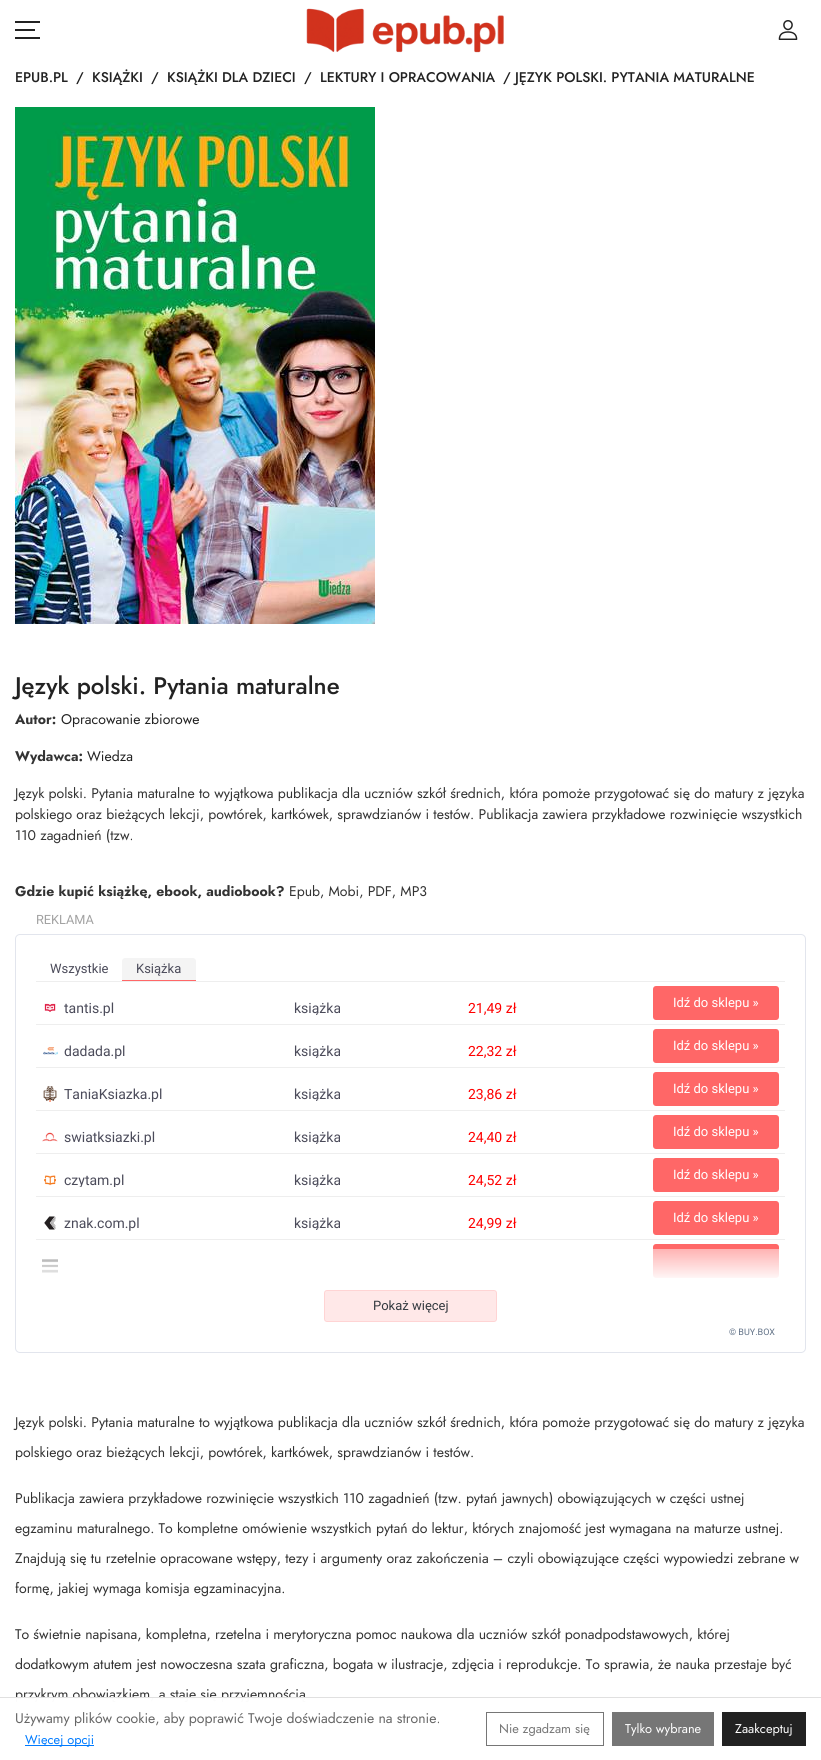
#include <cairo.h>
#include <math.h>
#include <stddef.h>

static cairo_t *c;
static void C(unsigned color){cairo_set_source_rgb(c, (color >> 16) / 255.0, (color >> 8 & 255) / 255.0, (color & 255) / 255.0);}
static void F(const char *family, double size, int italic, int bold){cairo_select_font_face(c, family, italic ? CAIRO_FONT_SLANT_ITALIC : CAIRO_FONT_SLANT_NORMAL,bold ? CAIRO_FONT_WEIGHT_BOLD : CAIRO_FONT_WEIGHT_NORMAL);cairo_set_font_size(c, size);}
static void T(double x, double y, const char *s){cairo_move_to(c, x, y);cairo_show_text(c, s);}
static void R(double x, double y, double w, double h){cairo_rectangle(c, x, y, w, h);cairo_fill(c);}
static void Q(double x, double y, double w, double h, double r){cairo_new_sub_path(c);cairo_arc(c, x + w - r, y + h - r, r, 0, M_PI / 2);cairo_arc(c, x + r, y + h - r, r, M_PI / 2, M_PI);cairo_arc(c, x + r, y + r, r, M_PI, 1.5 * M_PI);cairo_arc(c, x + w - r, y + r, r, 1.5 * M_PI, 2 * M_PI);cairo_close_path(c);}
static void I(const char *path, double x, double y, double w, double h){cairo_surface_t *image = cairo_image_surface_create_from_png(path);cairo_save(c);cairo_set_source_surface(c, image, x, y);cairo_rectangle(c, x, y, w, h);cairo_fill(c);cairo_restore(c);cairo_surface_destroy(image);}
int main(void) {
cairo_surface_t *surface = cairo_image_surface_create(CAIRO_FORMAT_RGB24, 821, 1760);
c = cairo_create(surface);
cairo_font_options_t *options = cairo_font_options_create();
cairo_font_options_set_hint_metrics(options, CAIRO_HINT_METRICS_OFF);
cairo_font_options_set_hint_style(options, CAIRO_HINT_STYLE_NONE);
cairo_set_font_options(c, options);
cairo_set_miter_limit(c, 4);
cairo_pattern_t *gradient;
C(0xffffff);
cairo_paint(c);
C(0x222222);
R(15,21,25,2);
R(15,29,20,2);
R(15,37,25,2);
I("1.png",306,8,198,45);
I("2.png",778,20,20,20);
F("Jost Medium",14,0,0);
T(15,82,"EPUB.PL");
T(76,82,"/");
T(92,82,"KSIĄŻKI");
T(151,82,"/");
T(167,82,"KSIĄŻKI DLA DZIECI");
T(304,82,"/");
T(320,82,"LEKTURY I OPRACOWANIA");
T(503,82,"/ JĘZYK POLSKI. PYTANIA MATURALNE");
I("3.png",15,107,360,517);
F("Jost Medium",24,0,0);
T(15,694,"Język polski. Pytania maturalne");
F("Jost",14,0,1);
C(0x333333);
T(15,724,"Autor:");
F("Jost",14,0,0);
C(0x222222);
T(61,724,"Opracowanie zbiorowe");
F("Jost",14,0,1);
C(0x333333);
T(15,761,"Wydawca:");
F("Jost",14,0,0);
C(0x222222);
T(87,761,"Wiedza");
C(0x333333);
T(15,798,"Język polski. Pytania maturalne to wyjątkowa publikacja dla uczniów szkół średnich, która pomoże przygotować się do matury z języka");
T(15,819,"polskiego oraz bieżących lekcji, powtórek, kartkówek, sprawdzianów i testów. Publikacja zawiera przykładowe rozwinięcie wszystkich");
T(15,840,"110 zagadnień (tzw.");
F("Jost",14,0,1);
T(15,896,"Gdzie kupić książkę, ebook, audiobook?");
F("Jost",14,0,0);
T(289,896,"Epub, Mobi, PDF, MP3");
Q(15.5,934.5,790,418,4.5);
C(0xe2e5ed);
cairo_set_line_width(c,1);
cairo_stroke(c);
F("Roboto",12.75,0,0);
C(0xa2a2a2);
T(36,924,"REKLAMA");
C(0xeeeeee);
R(36,981,749,1);
F("Roboto",13,0,0);
C(0x4b4b5a);
T(50,973,"Wszystkie");
C(0xf4f4f4);
cairo_new_path(c);
cairo_move_to(c,125,958);
cairo_line_to(c,193,958);
cairo_curve_to(c,194.5,958,196,959.5,196,961);
cairo_line_to(c,196,981);
cairo_line_to(c,122,981);
cairo_line_to(c,122,961);
cairo_curve_to(c,122,959.5,123.5,958,125,958);
cairo_close_path(c);
cairo_fill(c);
C(0xff6767);
R(122,980,74,1);
C(0x4b4b5a);
T(136,973,"Książka");
I("4.png",44,1003,12,9);
F("Roboto",14,0,0);
T(64,1013,"tantis.pl");
cairo_save(c);
cairo_rectangle(c,294,1001,51,14);
cairo_clip(c);
T(294,1013,"książka");
cairo_restore(c);
C(0xff0000);
T(468,1013,"21,49 zł");
C(0xeeeeee);
R(36,1024,749,1);
C(0xff6767);
Q(653,986,126,34,3);
cairo_fill(c);
F("Roboto",13,0,0);
C(0xffffff);
T(673,1007,"Idź do sklepu »");
I("5.png",43,1047,15,8);
F("Roboto",14,0,0);
C(0x4b4b5a);
T(64,1056,"dadada.pl");
cairo_save(c);
cairo_rectangle(c,294,1044,51,14);
cairo_clip(c);
T(294,1056,"książka");
cairo_restore(c);
C(0xff0000);
T(468,1056,"22,32 zł");
C(0xeeeeee);
R(36,1067,749,1);
C(0xff6767);
Q(653,1029,126,34,3);
cairo_fill(c);
F("Roboto",13,0,0);
C(0xffffff);
T(673,1050,"Idź do sklepu »");
I("6.png",43,1086,14,16);
F("Roboto",14,0,0);
C(0x4b4b5a);
T(64,1099,"TaniaKsiazka.pl");
cairo_save(c);
cairo_rectangle(c,294,1087,51,14);
cairo_clip(c);
T(294,1099,"książka");
cairo_restore(c);
C(0xff0000);
T(468,1099,"23,86 zł");
C(0xeeeeee);
R(36,1110,749,1);
C(0xff6767);
Q(653,1072,126,34,3);
cairo_fill(c);
F("Roboto",13,0,0);
C(0xffffff);
T(673,1093,"Idź do sklepu »");
I("7.png",42,1132,16,10);
F("Roboto",14,0,0);
C(0x4b4b5a);
T(64,1142,"swiatksiazki.pl");
cairo_save(c);
cairo_rectangle(c,294,1130,51,14);
cairo_clip(c);
T(294,1142,"książka");
cairo_restore(c);
C(0xff0000);
T(468,1142,"24,40 zł");
C(0xeeeeee);
R(36,1153,749,1);
C(0xff6767);
Q(653,1115,126,34,3);
cairo_fill(c);
F("Roboto",13,0,0);
C(0xffffff);
T(673,1136,"Idź do sklepu »");
I("8.png",44,1175,12,11);
cairo_save(c);
cairo_rectangle(c,64,1173,60,14);
cairo_clip(c);
F("Roboto",14,0,0);
C(0x4b4b5a);
T(64,1185,"czytam.pl");
cairo_restore(c);
cairo_save(c);
cairo_rectangle(c,294,1173,51,14);
cairo_clip(c);
F("Roboto",14,0,0);
C(0x4b4b5a);
T(294,1185,"książka");
cairo_restore(c);
F("Roboto",14,0,0);
C(0xff0000);
T(468,1185,"24,52 zł");
C(0xeeeeee);
R(36,1196,749,1);
C(0xff6767);
Q(653,1158,126,34,3);
cairo_fill(c);
F("Roboto",13,0,0);
C(0xffffff);
T(673,1179,"Idź do sklepu »");
I("9.png",44,1216,12,14);
F("Roboto",14,0,0);
C(0x4b4b5a);
T(64,1228,"znak.com.pl");
cairo_save(c);
cairo_rectangle(c,294,1216,51,14);
cairo_clip(c);
T(294,1228,"książka");
cairo_restore(c);
C(0xff0000);
T(468,1228,"24,99 zł");
C(0xeeeeee);
R(36,1239,749,1);
C(0xff6767);
Q(653,1201,126,34,3);
cairo_fill(c);
F("Roboto",13,0,0);
C(0xffffff);
T(673,1222,"Idź do sklepu »");
I("10.png",42,1259,16,14);
gradient = cairo_pattern_create_linear(162,1249,162,1282);
cairo_pattern_add_color_stop_rgba(gradient,0,1,1,1,.5);
cairo_pattern_add_color_stop_rgba(gradient,1,1,1,1,1);
cairo_set_source(c,gradient);
cairo_pattern_destroy(gradient);
R(42,1259,16,14);
C(0xff6767);
Q(653,1244,126,34,3);
cairo_fill(c);
gradient = cairo_pattern_create_linear(654,1249,654,1282);
cairo_pattern_add_color_stop_rgba(gradient,0,1,1,1,.5);
cairo_pattern_add_color_stop_rgba(gradient,1,1,1,1,1);
cairo_set_source(c,gradient);
cairo_pattern_destroy(gradient);
R(653,1249,126,29);
C(0xffe8e8);
Q(324,1290,173,32,3);
cairo_fill(c);
Q(324.5,1290.5,172,31,2.5);
cairo_set_source_rgba(c,1,0.404,0.404,0.15);
cairo_stroke(c);
C(0x343a40);
T(373,1310,"Pokaż więcej");
F("Roboto",9,0,0);
C(0x637388);
T(729,1335,"© BUY.BOX");
F("Jost",14,0,0);
C(0x333333);
T(15,1427,"Język polski. Pytania maturalne to wyjątkowa publikacja dla uczniów szkół średnich, która pomoże przygotować się do matury z języka");
T(15,1457,"polskiego oraz bieżących lekcji, powtórek, kartkówek, sprawdzianów i testów.");
T(15,1503,"Publikacja zawiera przykładowe rozwinięcie wszystkich 110 zagadnień (tzw. pytań jawnych) obowiązujących w części ustnej");
T(15,1533,"egzaminu maturalnego. To kompletne omówienie wszystkich pytań do lektur, których znajomość jest wymagana na maturze ustnej.");
T(15,1563,"Znajdują się tu rzetelnie opracowane wstępy, tezy i argumenty oraz zakończenia – czyli obowiązujące części wypowiedzi zebrane w");
T(15,1593,"formę, jakiej wymaga komisja egzaminacyjna.");
T(15,1639,"To świetnie napisana, kompletna, rzetelna i merytoryczna pomoc naukowa dla uczniów szkół ponadpodstawowych, której");
T(15,1669,"dodatkowym atutem jest nowoczesna szata graficzna, bogata w ilustracje, zdjęcia i reprodukcje. To sprawia, że nauka przestaje być");
T(15,1699,"przykrym obowiązkiem, a staje się przyjemnością");
cairo_set_source_rgba(c,1,1,1,0.98);
R(15,1698,291,5);
C(0xe0e0e0);
R(0,1697,821,1);
C(0x666666);
T(15,1723,"Używamy plików cookie, aby poprawić Twoje doświadczenie na stronie.");
C(0x007bff);
R(25,1745,69,1);
F("Jost",12.75,0,0);
T(25,1744,"Więcej opcji");
cairo_rectangle(c,486.5,1712.5,117,33);
C(0x767676);
cairo_stroke(c);
T(499,1733,"Nie zgadzam się");
R(612,1712,102,34);
C(0xffffff);
T(625,1733,"Tylko wybrane");
C(0x222222);
R(722,1712,84,34);
C(0xffffff);
T(735,1733,"Zaakceptuj");
cairo_surface_write_to_png(surface, "o.png");
cairo_font_options_destroy(options);
cairo_destroy(c);
cairo_surface_destroy(surface);
return 0;
}
